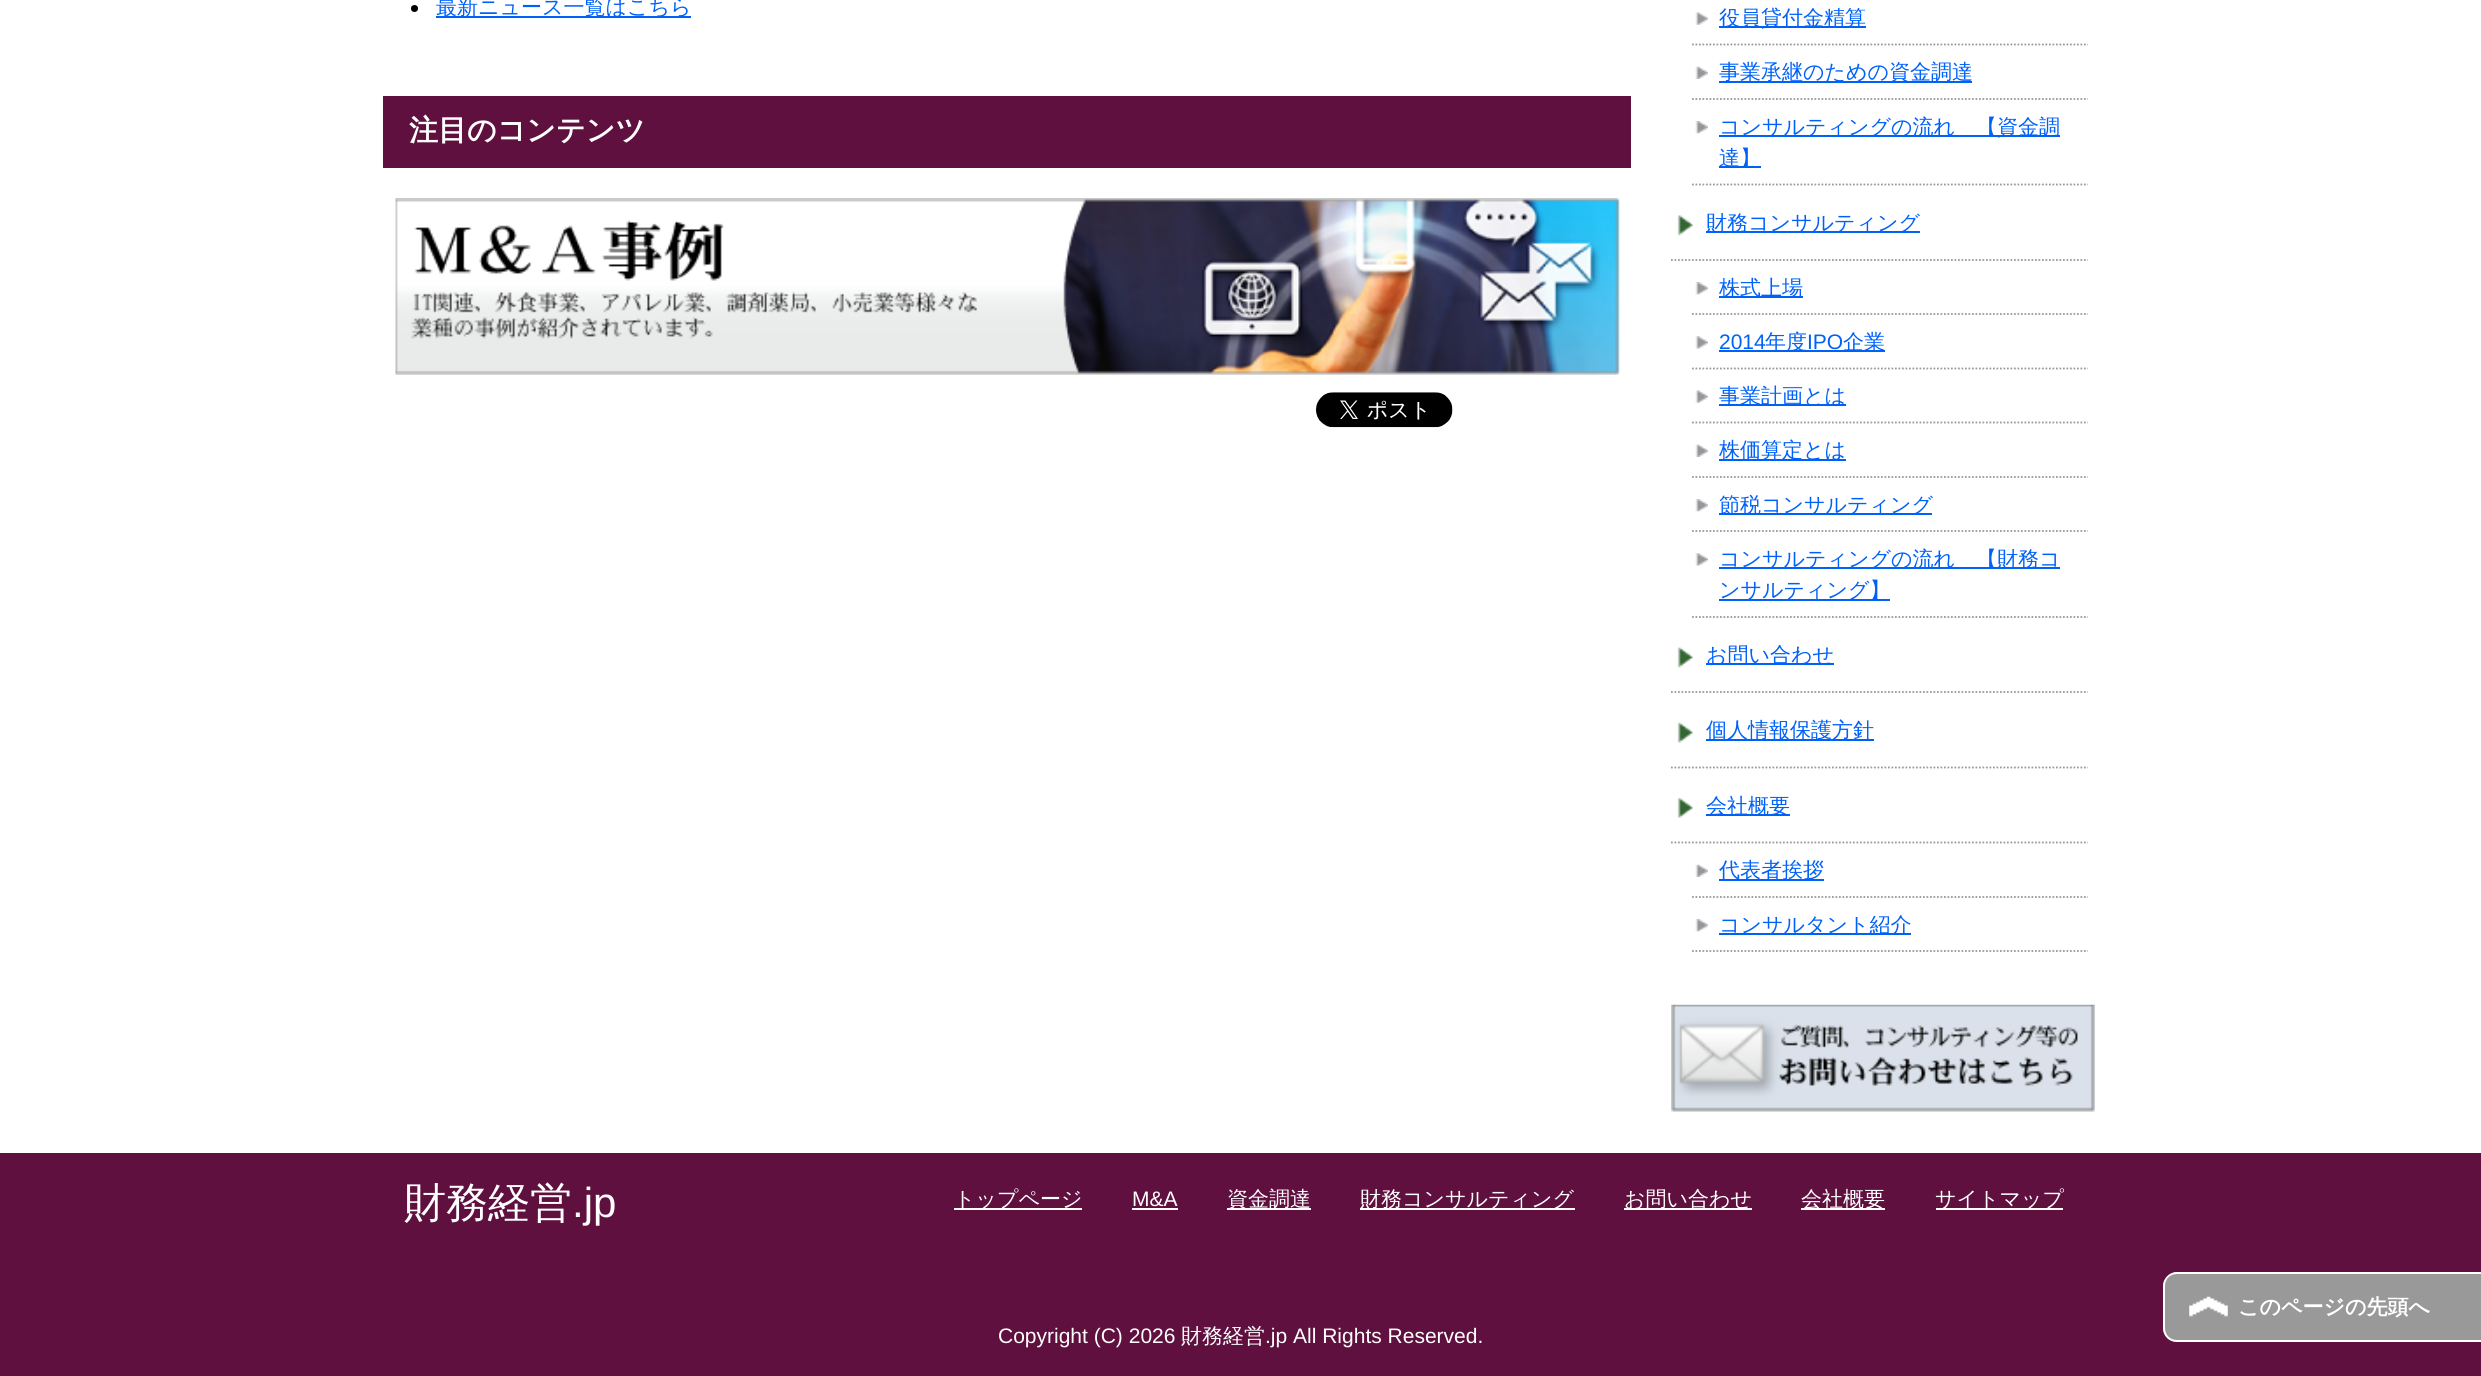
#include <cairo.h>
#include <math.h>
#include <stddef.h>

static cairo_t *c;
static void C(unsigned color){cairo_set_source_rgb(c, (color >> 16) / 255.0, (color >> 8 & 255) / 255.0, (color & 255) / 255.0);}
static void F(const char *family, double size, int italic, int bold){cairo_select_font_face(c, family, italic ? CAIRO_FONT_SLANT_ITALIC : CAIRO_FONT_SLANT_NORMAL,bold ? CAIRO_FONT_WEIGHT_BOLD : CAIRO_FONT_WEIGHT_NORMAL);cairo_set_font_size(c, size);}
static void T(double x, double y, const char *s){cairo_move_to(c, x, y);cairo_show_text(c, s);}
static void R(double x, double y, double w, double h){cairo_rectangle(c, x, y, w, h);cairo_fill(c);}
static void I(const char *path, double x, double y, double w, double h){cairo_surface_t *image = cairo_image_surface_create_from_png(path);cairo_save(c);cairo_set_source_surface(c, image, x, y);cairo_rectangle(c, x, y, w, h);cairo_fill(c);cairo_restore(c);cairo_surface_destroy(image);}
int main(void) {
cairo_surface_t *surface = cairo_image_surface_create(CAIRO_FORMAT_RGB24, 2481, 1376);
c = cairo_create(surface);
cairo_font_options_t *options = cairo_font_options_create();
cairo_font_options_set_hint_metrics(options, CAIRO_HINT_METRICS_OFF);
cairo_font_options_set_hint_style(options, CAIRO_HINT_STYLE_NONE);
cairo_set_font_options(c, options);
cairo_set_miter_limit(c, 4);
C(0xffffff);
cairo_paint(c);
C(0x000000);
cairo_arc(c,414.5,8.5,3.5,0,2 * M_PI);
cairo_fill(c);
C(0x0061f9);
R(436,16,255,2);
F("WenQuanYi Zen Hei Medium",21,0,0);
T(436,14,"最新ニュース一覧はこちら");
C(0x5f103f);
R(383,96,1248,72);
F("WenQuanYi Zen Hei",29,0,1);
C(0xffffff);
T(409,140,"注目のコンテンツ");
I("1.png",395,198,1225,177);
I("2.png",1316,392,137,36);
I("3.png",1695,12,13,13);
cairo_new_path(c);
cairo_move_to(c,1692,44.5);
cairo_line_to(c,2088,44.5);
C(0x999999);
cairo_set_line_width(c,1.8);
cairo_set_dash(c,(double[]){1.75,1.75},2,0);
cairo_stroke(c);
C(0x0061f9);
R(1719,26,147,2);
F("WenQuanYi Zen Hei Medium",21,0,0);
T(1719,25,"役員貸付金精算");
I("4.png",1695,66,13,13);
cairo_new_path(c);
cairo_move_to(c,1692,99);
cairo_line_to(c,2088,99);
C(0x999999);
cairo_stroke(c);
C(0x0061f9);
R(1719,81,253,2);
T(1719,79,"事業承継のための資金調達");
I("5.png",1695,121,13,13);
cairo_new_path(c);
cairo_move_to(c,1692,184.5);
cairo_line_to(c,2088,184.5);
C(0x999999);
cairo_stroke(c);
C(0x0061f9);
R(1719,135,341,2);
T(1719,134,"コンサルティングの流れ　【資金調");
R(1719,166,42,2);
T(1719,165,"達】");
I("6.png",1677,215,16,21);
cairo_new_path(c);
cairo_move_to(c,1671,260);
cairo_line_to(c,2088,260);
C(0x999999);
cairo_stroke(c);
C(0x0061f9);
R(1706,231,214,2);
T(1706,230,"財務コンサルティング");
I("5.png",1695,282,13,13);
cairo_new_path(c);
cairo_move_to(c,1692,314);
cairo_line_to(c,2088,314);
C(0x999999);
cairo_stroke(c);
C(0x0061f9);
R(1719,296,84,2);
T(1719,295,"株式上場");
I("7.png",1695,336,13,13);
cairo_new_path(c);
cairo_move_to(c,1692,368.5);
cairo_line_to(c,2088,368.5);
C(0x999999);
cairo_stroke(c);
F("Liberation Sans",21,0,0);
C(0x0061f9);
T(1719,349,"2014");
R(1719,350,166,2);
F("WenQuanYi Zen Hei Medium",21,0,0);
T(1765,349,"年度");
F("Liberation Sans",21,0,0);
T(1807,349,"IPO");
F("WenQuanYi Zen Hei Medium",21,0,0);
T(1843,349,"企業");
I("3.png",1695,390,13,13);
cairo_new_path(c);
cairo_move_to(c,1692,422.5);
cairo_line_to(c,2088,422.5);
C(0x999999);
cairo_stroke(c);
C(0x0061f9);
R(1719,404,127,2);
T(1719,403,"事業計画とは");
I("4.png",1695,444,13,13);
cairo_new_path(c);
cairo_move_to(c,1692,477);
cairo_line_to(c,2088,477);
C(0x999999);
cairo_stroke(c);
C(0x0061f9);
R(1719,459,127,2);
T(1719,457,"株価算定とは");
I("5.png",1695,499,13,13);
cairo_new_path(c);
cairo_move_to(c,1692,531);
cairo_line_to(c,2088,531);
C(0x999999);
cairo_stroke(c);
C(0x0061f9);
R(1719,513,213,2);
T(1719,512,"節税コンサルティング");
I("7.png",1695,553,13,13);
cairo_new_path(c);
cairo_move_to(c,1692,617);
cairo_line_to(c,2088,617);
C(0x999999);
cairo_stroke(c);
C(0x0061f9);
R(1719,567,341,2);
T(1719,566,"コンサルティングの流れ　【財務コ");
R(1719,599,171,2);
T(1719,597,"ンサルティング】");
I("8.png",1677,647,16,21);
cairo_new_path(c);
cairo_move_to(c,1671,692);
cairo_line_to(c,2088,692);
C(0x999999);
cairo_stroke(c);
C(0x0061f9);
R(1706,663,128,2);
T(1706,662,"お問い合わせ");
I("9.png",1677,722,16,21);
cairo_new_path(c);
cairo_move_to(c,1671,767.5);
cairo_line_to(c,2088,767.5);
C(0x999999);
cairo_stroke(c);
C(0x0061f9);
R(1706,739,168,2);
T(1706,737,"個人情報保護方針");
I("10.png",1677,797,16,21);
cairo_new_path(c);
cairo_move_to(c,1671,842.5);
cairo_line_to(c,2088,842.5);
C(0x999999);
cairo_stroke(c);
C(0x0061f9);
R(1706,814,84,2);
T(1706,813,"会社概要");
I("4.png",1695,864,13,13);
cairo_new_path(c);
cairo_move_to(c,1692,897);
cairo_line_to(c,2088,897);
C(0x999999);
cairo_stroke(c);
C(0x0061f9);
R(1719,879,105,2);
T(1719,877,"代表者挨拶");
I("5.png",1695,919,13,13);
cairo_new_path(c);
cairo_move_to(c,1692,951);
cairo_line_to(c,2088,951);
C(0x999999);
cairo_stroke(c);
C(0x0061f9);
R(1719,933,192,2);
T(1719,932,"コンサルタント紹介");
I("11.png",1671,1004,424,108);
C(0x5f103f);
R(0,1153,2481,223);
F("WenQuanYi Zen Hei Medium",42,0,0);
C(0xffffff);
T(404,1217,"財務経営");
F("Liberation Sans",42,0,0);
T(572,1217,".jp");
R(954,1208,128,2);
F("WenQuanYi Zen Hei Medium",21,0,0);
T(954,1206,"トップページ");
F("Liberation Sans",21,0,0);
T(1132,1206,"M&A");
R(1132,1208,46,2);
R(1227,1208,84,2);
F("WenQuanYi Zen Hei Medium",21,0,0);
T(1227,1206,"資金調達");
R(1360,1208,215,2);
T(1360,1206,"財務コンサルティング");
R(1624,1208,128,2);
T(1624,1206,"お問い合わせ");
R(1801,1208,84,2);
T(1801,1206,"会社概要");
R(1936,1208,127,2);
T(1935,1206,"サイトマップ");
F("Liberation Sans",21,0,0);
T(998,1343,"Copyright (C) 2026");
F("WenQuanYi Zen Hei Medium",21,0,0);
T(1181,1343,"財務経営");
F("Liberation Sans",21,0,0);
T(1265,1343,".jp All Rights Reserved.");
C(0x999999);
cairo_new_path(c);
cairo_move_to(c,2177,1272);
cairo_line_to(c,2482,1272);
cairo_line_to(c,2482,1342);
cairo_line_to(c,2177,1342);
cairo_curve_to(c,2169.5,1342,2163,1335.5,2163,1328);
cairo_line_to(c,2163,1286);
cairo_curve_to(c,2163,1278.5,2169.5,1272,2177,1272);
cairo_close_path(c);
cairo_fill(c);
I("12.png",2189,1296,39,21);
C(0xffffff);
cairo_set_fill_rule(c,CAIRO_FILL_RULE_EVEN_ODD);
cairo_new_path(c);
cairo_move_to(c,2177,1272);
cairo_line_to(c,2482,1272);
cairo_line_to(c,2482,1342);
cairo_line_to(c,2177,1342);
cairo_curve_to(c,2169,1342,2163,1336,2163,1328);
cairo_line_to(c,2163,1286);
cairo_curve_to(c,2163,1279,2169,1272,2177,1272);
cairo_close_path(c);
cairo_move_to(c,2177,1274);
cairo_line_to(c,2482,1274);
cairo_line_to(c,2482,1340);
cairo_line_to(c,2177,1340);
cairo_curve_to(c,2170,1340,2165,1335,2165,1328);
cairo_line_to(c,2165,1286);
cairo_curve_to(c,2165,1279,2170,1274,2177,1274);
cairo_close_path(c);
cairo_fill(c);
F("WenQuanYi Zen Hei",21,0,1);
T(2238,1314,"このページの先頭へ");
cairo_surface_write_to_png(surface, "o.png");
cairo_font_options_destroy(options);
cairo_destroy(c);
cairo_surface_destroy(surface);
return 0;
}
